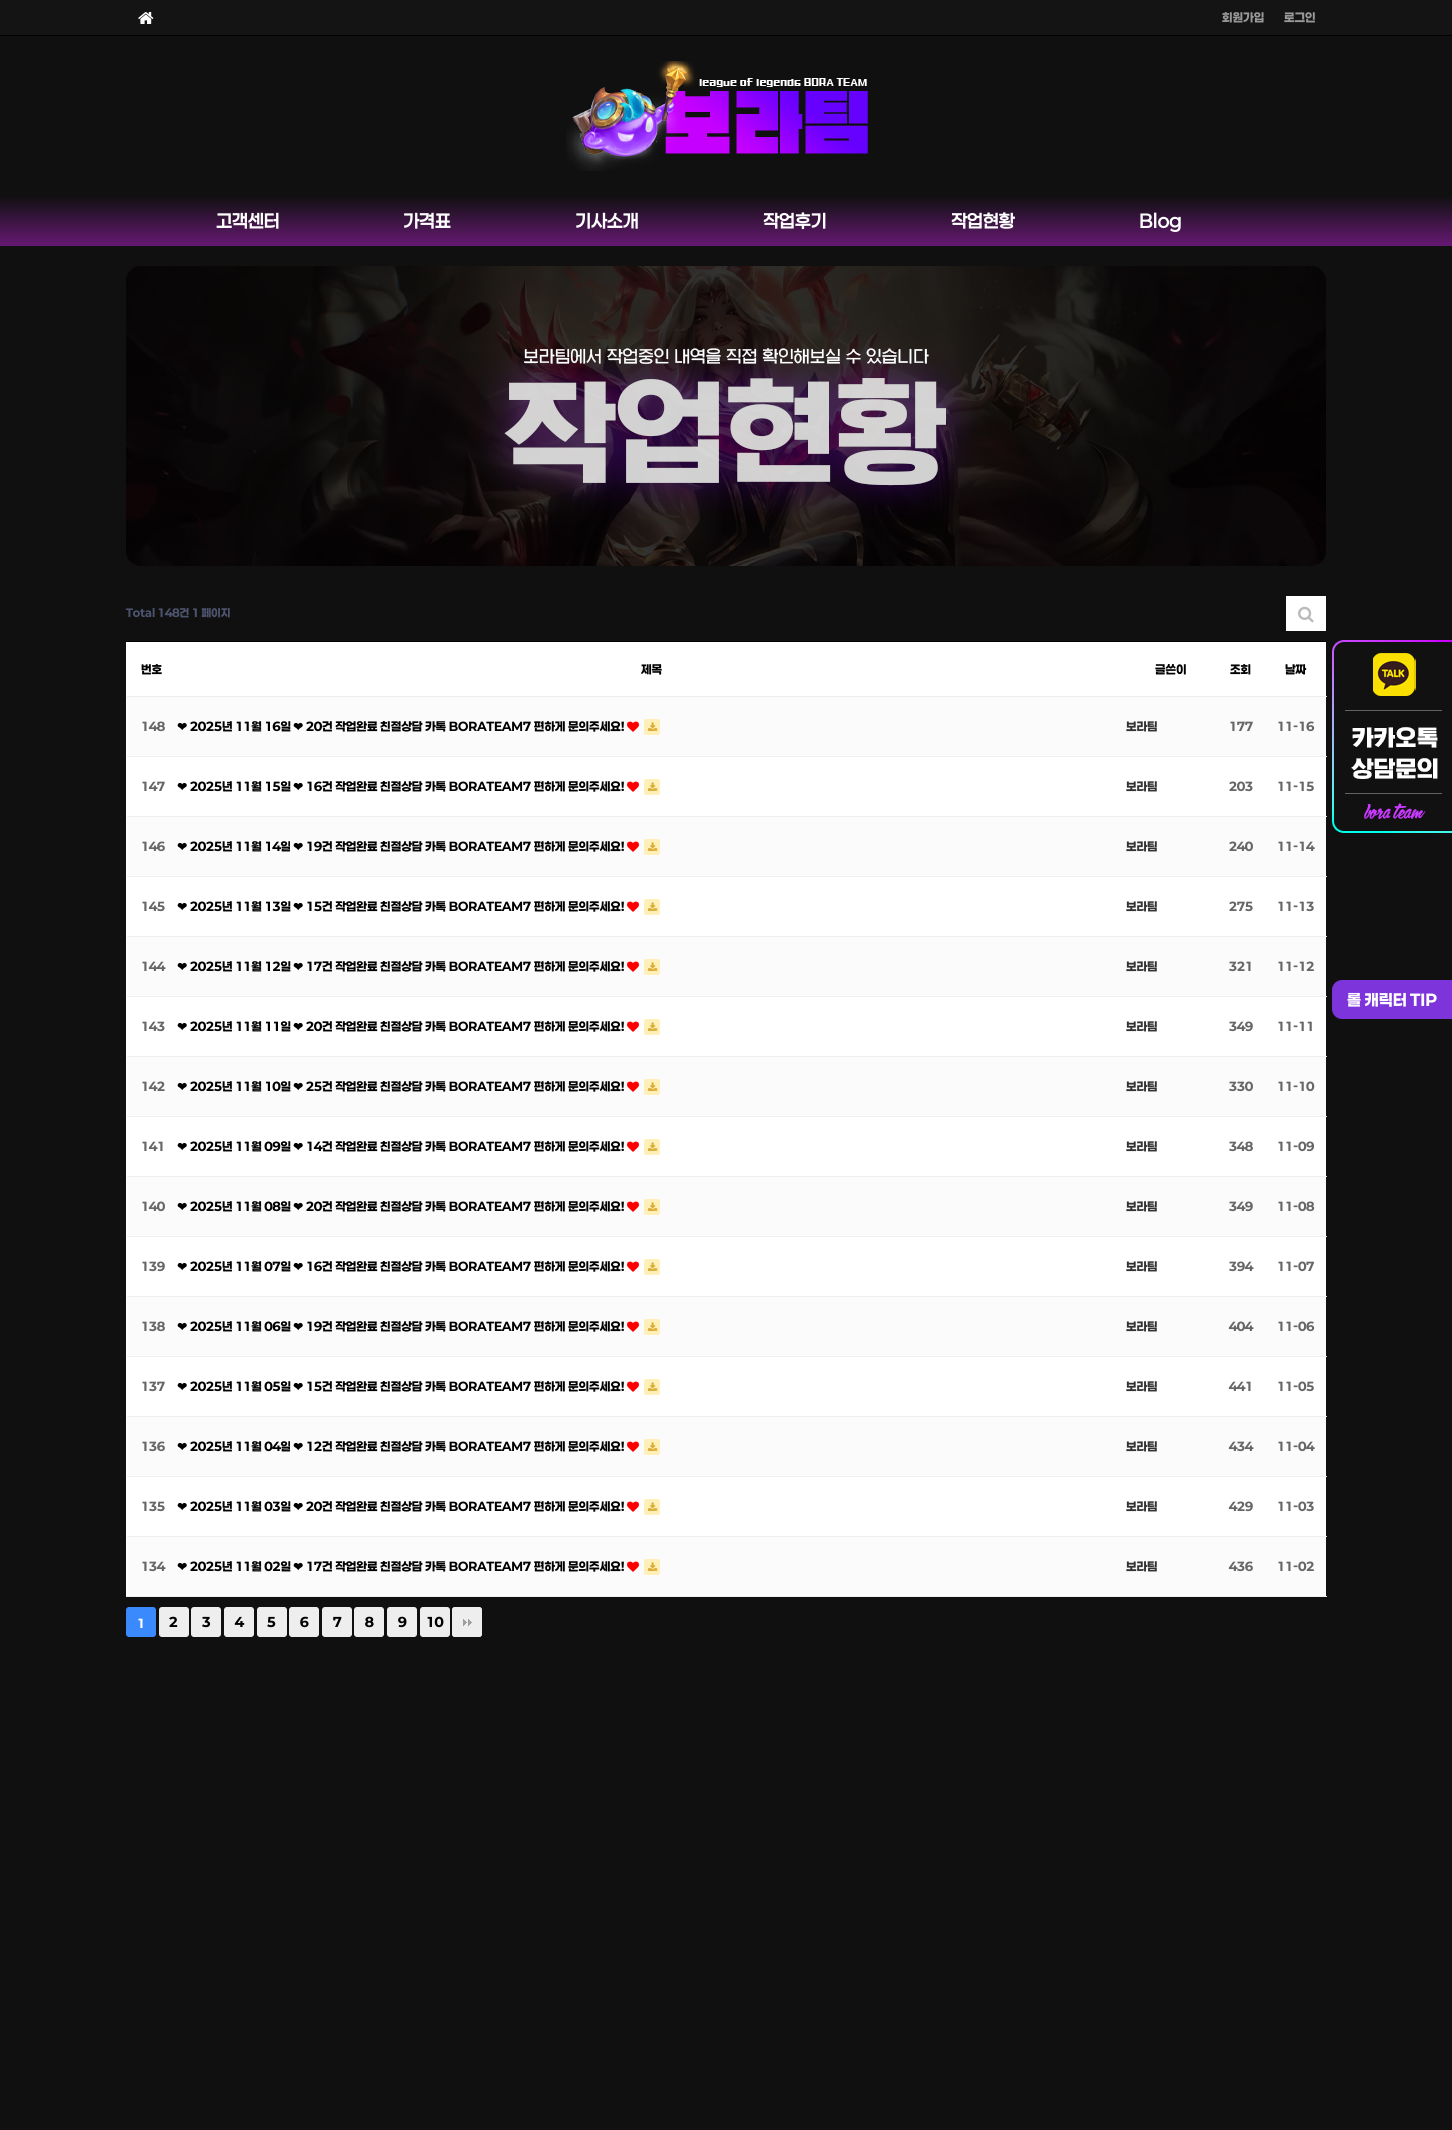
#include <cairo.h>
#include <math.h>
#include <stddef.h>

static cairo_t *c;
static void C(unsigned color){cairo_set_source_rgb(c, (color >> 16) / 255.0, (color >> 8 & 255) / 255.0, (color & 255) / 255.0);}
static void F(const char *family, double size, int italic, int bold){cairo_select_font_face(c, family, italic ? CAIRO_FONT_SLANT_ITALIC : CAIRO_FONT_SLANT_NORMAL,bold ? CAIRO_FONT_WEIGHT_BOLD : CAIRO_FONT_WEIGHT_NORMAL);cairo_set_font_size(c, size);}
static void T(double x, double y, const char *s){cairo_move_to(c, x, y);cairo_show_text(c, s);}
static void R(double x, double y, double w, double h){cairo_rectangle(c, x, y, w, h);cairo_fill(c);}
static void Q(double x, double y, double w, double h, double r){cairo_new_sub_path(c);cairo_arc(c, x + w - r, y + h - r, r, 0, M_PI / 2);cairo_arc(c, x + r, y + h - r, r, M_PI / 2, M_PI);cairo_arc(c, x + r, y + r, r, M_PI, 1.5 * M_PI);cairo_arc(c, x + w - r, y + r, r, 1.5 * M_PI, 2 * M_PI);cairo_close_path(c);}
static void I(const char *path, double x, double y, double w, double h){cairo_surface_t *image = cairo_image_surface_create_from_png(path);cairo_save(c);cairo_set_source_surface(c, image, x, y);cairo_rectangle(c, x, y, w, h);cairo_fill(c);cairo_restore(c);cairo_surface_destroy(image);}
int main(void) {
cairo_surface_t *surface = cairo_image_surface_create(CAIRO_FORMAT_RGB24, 1452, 2130);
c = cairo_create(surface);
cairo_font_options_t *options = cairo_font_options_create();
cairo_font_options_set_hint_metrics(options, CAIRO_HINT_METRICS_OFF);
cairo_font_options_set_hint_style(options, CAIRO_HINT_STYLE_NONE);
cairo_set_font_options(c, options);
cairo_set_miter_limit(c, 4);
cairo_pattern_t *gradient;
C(0x101010);
cairo_paint(c);
C(0x141414);
R(0,0,1452,35);
C(0x000000);
R(0,35,1452,1);
I("1.png",138,12,16,12);
F("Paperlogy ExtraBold",12,0,0);
C(0x999999);
T(1222,22,"회원가입");
T(1284,22,"로그인");
I("2.png",566,61,302,110);
gradient = cairo_pattern_create_linear(726,196,726,246);
cairo_pattern_add_color_stop_rgba(gradient,0,0.063,0.063,0.063,1);
cairo_pattern_add_color_stop_rgba(gradient,1,0.4,0.098,0.451,1);
cairo_set_source(c,gradient);
cairo_pattern_destroy(gradient);
R(0,197,1452,49);
F("Paperlogy",18,0,1);
C(0xffffff);
T(216,228,"고객센터");
T(403,228,"가격표");
T(575,228,"기사소개");
T(763,228,"작업후기");
T(951,228,"작업현황");
T(1139,228,"Blog");
I("3.png",1332,640,120,193);
C(0x7d34db);
cairo_new_path(c);
cairo_move_to(c,1342,980);
cairo_line_to(c,1452,980);
cairo_line_to(c,1452,1019);
cairo_line_to(c,1342,1019);
cairo_curve_to(c,1336.5,1019,1332,1014.5,1332,1009);
cairo_line_to(c,1332,990);
cairo_curve_to(c,1332,984.5,1336.5,980,1342,980);
cairo_close_path(c);
cairo_fill(c);
F("Paperlogy ExtraBold",16,0,0);
C(0xffffff);
T(1347,1006,"롤 캐릭터 TIP");
I("4.png",126,266,1200,300);
F("Paperlogy ExtraBold",11,0,0);
C(0x4e546f);
T(126,617,"Total 148건 1 페이지");
C(0xffffff);
R(1286,596,40,35);
I("5.png",1298,606,16,17);
R(126,642,1200,954);
C(0x000000);
R(126,641,1200,1);
C(0xececec);
R(126,1596,1,1);
F("Paperlogy ExtraBold",12,0,0);
C(0x000000);
T(141,674,"번호");
T(641,674,"제목");
T(1155,674,"글쓴이");
T(1230,674,"조회");
C(0xececec);
R(127,696,1200,1);
C(0x000000);
T(1285,674,"날짜");
C(0xfbfbfb);
R(127,697,1199,59);
C(0x666666);
T(141,731,"148");
F("DejaVu Sans",12,0,1);
C(0x000000);
T(177,731,"❤");
F("Paperlogy ExtraBold",12,0,0);
T(190,731,"2025년 11월 16일");
F("DejaVu Sans",12,0,1);
T(293,731,"❤");
F("Paperlogy ExtraBold",12,0,0);
T(306,731,"20건 작업완료 친절상담 카톡 BORATEAM7 편하게 문의주세요!");
I("6.png",627,721,12,11);
C(0xffefb9);
Q(644,719,16,16,2);
cairo_fill(c);
I("7.png",648,722,10,9);
C(0x333333);
T(1126,731,"보라팀");
C(0x666666);
T(1229,731,"177");
T(1277,731,"11-16");
T(141,791,"147");
F("DejaVu Sans",12,0,1);
C(0x000000);
T(177,791,"❤");
F("Paperlogy ExtraBold",12,0,0);
T(190,791,"2025년 11월 15일");
F("DejaVu Sans",12,0,1);
T(293,791,"❤");
F("Paperlogy ExtraBold",12,0,0);
T(306,791,"16건 작업완료 친절상담 카톡 BORATEAM7 편하게 문의주세요!");
I("8.png",627,781,12,11);
C(0xffefb9);
Q(644,779,16,16,2);
cairo_fill(c);
I("7.png",648,782,10,9);
C(0x333333);
T(1126,791,"보라팀");
C(0x666666);
T(1229,791,"203");
C(0xecf0f1);
R(127,756,1200,1);
C(0x666666);
T(1277,791,"11-15");
C(0xfbfbfb);
R(127,817,1199,59);
C(0x666666);
T(141,851,"146");
F("DejaVu Sans",12,0,1);
C(0x000000);
T(177,851,"❤");
F("Paperlogy ExtraBold",12,0,0);
T(190,851,"2025년 11월 14일");
F("DejaVu Sans",12,0,1);
T(293,851,"❤");
F("Paperlogy ExtraBold",12,0,0);
T(306,851,"19건 작업완료 친절상담 카톡 BORATEAM7 편하게 문의주세요!");
I("6.png",627,841,12,11);
C(0xffefb9);
Q(644,839,16,16,2);
cairo_fill(c);
I("7.png",648,842,10,9);
C(0x333333);
T(1126,851,"보라팀");
C(0x666666);
T(1229,851,"240");
C(0xecf0f1);
R(127,816,1200,1);
C(0x666666);
T(1277,851,"11-14");
T(141,911,"145");
F("DejaVu Sans",12,0,1);
C(0x000000);
T(177,911,"❤");
F("Paperlogy ExtraBold",12,0,0);
T(190,911,"2025년 11월 13일");
F("DejaVu Sans",12,0,1);
T(293,911,"❤");
F("Paperlogy ExtraBold",12,0,0);
T(306,911,"15건 작업완료 친절상담 카톡 BORATEAM7 편하게 문의주세요!");
I("8.png",627,901,12,11);
C(0xffefb9);
Q(644,899,16,16,2);
cairo_fill(c);
I("7.png",648,902,10,9);
C(0x333333);
T(1126,911,"보라팀");
C(0x666666);
T(1229,911,"275");
C(0xecf0f1);
R(127,876,1200,1);
C(0x666666);
T(1277,911,"11-13");
C(0xfbfbfb);
R(127,937,1199,59);
C(0x666666);
T(141,971,"144");
F("DejaVu Sans",12,0,1);
C(0x000000);
T(177,971,"❤");
F("Paperlogy ExtraBold",12,0,0);
T(190,971,"2025년 11월 12일");
F("DejaVu Sans",12,0,1);
T(293,971,"❤");
F("Paperlogy ExtraBold",12,0,0);
T(306,971,"17건 작업완료 친절상담 카톡 BORATEAM7 편하게 문의주세요!");
I("6.png",627,961,12,11);
C(0xffefb9);
Q(644,959,16,16,2);
cairo_fill(c);
I("7.png",648,962,10,9);
C(0x333333);
T(1126,971,"보라팀");
C(0x666666);
T(1229,971,"321");
C(0xecf0f1);
R(127,936,1200,1);
C(0x666666);
T(1277,971,"11-12");
T(141,1031,"143");
F("DejaVu Sans",12,0,1);
C(0x000000);
T(177,1031,"❤");
F("Paperlogy ExtraBold",12,0,0);
T(190,1031,"2025년 11월 11일");
F("DejaVu Sans",12,0,1);
T(293,1031,"❤");
F("Paperlogy ExtraBold",12,0,0);
T(306,1031,"20건 작업완료 친절상담 카톡 BORATEAM7 편하게 문의주세요!");
I("8.png",627,1021,12,11);
C(0xffefb9);
Q(644,1019,16,16,2);
cairo_fill(c);
I("7.png",648,1022,10,9);
C(0x333333);
T(1126,1031,"보라팀");
C(0x666666);
T(1229,1031,"349");
C(0xecf0f1);
R(127,996,1200,1);
C(0x666666);
T(1277,1031,"11-11");
C(0xfbfbfb);
R(127,1057,1199,59);
C(0x666666);
T(141,1091,"142");
F("DejaVu Sans",12,0,1);
C(0x000000);
T(177,1091,"❤");
F("Paperlogy ExtraBold",12,0,0);
T(190,1091,"2025년 11월 10일");
F("DejaVu Sans",12,0,1);
T(293,1091,"❤");
F("Paperlogy ExtraBold",12,0,0);
T(306,1091,"25건 작업완료 친절상담 카톡 BORATEAM7 편하게 문의주세요!");
I("6.png",627,1081,12,11);
C(0xffefb9);
Q(644,1079,16,16,2);
cairo_fill(c);
I("7.png",648,1082,10,9);
C(0x333333);
T(1126,1091,"보라팀");
C(0x666666);
T(1229,1091,"330");
C(0xecf0f1);
R(127,1056,1200,1);
C(0x666666);
T(1277,1091,"11-10");
T(141,1151,"141");
F("DejaVu Sans",12,0,1);
C(0x000000);
T(177,1151,"❤");
F("Paperlogy ExtraBold",12,0,0);
T(190,1151,"2025년 11월 09일");
F("DejaVu Sans",12,0,1);
T(293,1151,"❤");
F("Paperlogy ExtraBold",12,0,0);
T(306,1151,"14건 작업완료 친절상담 카톡 BORATEAM7 편하게 문의주세요!");
I("8.png",627,1141,12,11);
C(0xffefb9);
Q(644,1139,16,16,2);
cairo_fill(c);
I("7.png",648,1142,10,9);
C(0x333333);
T(1126,1151,"보라팀");
C(0x666666);
T(1229,1151,"348");
C(0xecf0f1);
R(127,1116,1200,1);
C(0x666666);
T(1277,1151,"11-09");
C(0xfbfbfb);
R(127,1177,1199,59);
C(0x666666);
T(141,1211,"140");
F("DejaVu Sans",12,0,1);
C(0x000000);
T(177,1211,"❤");
F("Paperlogy ExtraBold",12,0,0);
T(190,1211,"2025년 11월 08일");
F("DejaVu Sans",12,0,1);
T(293,1211,"❤");
F("Paperlogy ExtraBold",12,0,0);
T(306,1211,"20건 작업완료 친절상담 카톡 BORATEAM7 편하게 문의주세요!");
I("6.png",627,1201,12,11);
C(0xffefb9);
Q(644,1199,16,16,2);
cairo_fill(c);
I("7.png",648,1202,10,9);
C(0x333333);
T(1126,1211,"보라팀");
C(0x666666);
T(1229,1211,"349");
C(0xecf0f1);
R(127,1176,1200,1);
C(0x666666);
T(1277,1211,"11-08");
T(141,1271,"139");
F("DejaVu Sans",12,0,1);
C(0x000000);
T(177,1271,"❤");
F("Paperlogy ExtraBold",12,0,0);
T(190,1271,"2025년 11월 07일");
F("DejaVu Sans",12,0,1);
T(293,1271,"❤");
F("Paperlogy ExtraBold",12,0,0);
T(306,1271,"16건 작업완료 친절상담 카톡 BORATEAM7 편하게 문의주세요!");
I("8.png",627,1261,12,11);
C(0xffefb9);
Q(644,1259,16,16,2);
cairo_fill(c);
I("7.png",648,1262,10,9);
C(0x333333);
T(1126,1271,"보라팀");
C(0x666666);
T(1229,1271,"394");
C(0xecf0f1);
R(127,1236,1200,1);
C(0x666666);
T(1277,1271,"11-07");
C(0xfbfbfb);
R(127,1297,1199,59);
C(0x666666);
T(141,1331,"138");
F("DejaVu Sans",12,0,1);
C(0x000000);
T(177,1331,"❤");
F("Paperlogy ExtraBold",12,0,0);
T(190,1331,"2025년 11월 06일");
F("DejaVu Sans",12,0,1);
T(293,1331,"❤");
F("Paperlogy ExtraBold",12,0,0);
T(306,1331,"19건 작업완료 친절상담 카톡 BORATEAM7 편하게 문의주세요!");
I("6.png",627,1321,12,11);
C(0xffefb9);
Q(644,1319,16,16,2);
cairo_fill(c);
I("7.png",648,1322,10,9);
C(0x333333);
T(1126,1331,"보라팀");
C(0x666666);
T(1229,1331,"404");
C(0xecf0f1);
R(127,1296,1200,1);
C(0x666666);
T(1277,1331,"11-06");
T(141,1391,"137");
F("DejaVu Sans",12,0,1);
C(0x000000);
T(177,1391,"❤");
F("Paperlogy ExtraBold",12,0,0);
T(190,1391,"2025년 11월 05일");
F("DejaVu Sans",12,0,1);
T(293,1391,"❤");
F("Paperlogy ExtraBold",12,0,0);
T(306,1391,"15건 작업완료 친절상담 카톡 BORATEAM7 편하게 문의주세요!");
I("8.png",627,1381,12,11);
C(0xffefb9);
Q(644,1379,16,16,2);
cairo_fill(c);
I("7.png",648,1382,10,9);
C(0x333333);
T(1126,1391,"보라팀");
C(0x666666);
T(1229,1391,"441");
C(0xecf0f1);
R(127,1356,1200,1);
C(0x666666);
T(1277,1391,"11-05");
C(0xfbfbfb);
R(127,1417,1199,59);
C(0x666666);
T(141,1451,"136");
F("DejaVu Sans",12,0,1);
C(0x000000);
T(177,1451,"❤");
F("Paperlogy ExtraBold",12,0,0);
T(190,1451,"2025년 11월 04일");
F("DejaVu Sans",12,0,1);
T(293,1451,"❤");
F("Paperlogy ExtraBold",12,0,0);
T(306,1451,"12건 작업완료 친절상담 카톡 BORATEAM7 편하게 문의주세요!");
I("6.png",627,1441,12,11);
C(0xffefb9);
Q(644,1439,16,16,2);
cairo_fill(c);
I("7.png",648,1442,10,9);
C(0x333333);
T(1126,1451,"보라팀");
C(0x666666);
T(1229,1451,"434");
C(0xecf0f1);
R(127,1416,1200,1);
C(0x666666);
T(1277,1451,"11-04");
T(141,1511,"135");
F("DejaVu Sans",12,0,1);
C(0x000000);
T(177,1511,"❤");
F("Paperlogy ExtraBold",12,0,0);
T(190,1511,"2025년 11월 03일");
F("DejaVu Sans",12,0,1);
T(293,1511,"❤");
F("Paperlogy ExtraBold",12,0,0);
T(306,1511,"20건 작업완료 친절상담 카톡 BORATEAM7 편하게 문의주세요!");
I("8.png",627,1501,12,11);
C(0xffefb9);
Q(644,1499,16,16,2);
cairo_fill(c);
I("7.png",648,1502,10,9);
C(0x333333);
T(1126,1511,"보라팀");
C(0x666666);
T(1229,1511,"429");
C(0xecf0f1);
R(127,1476,1200,1);
C(0x666666);
T(1277,1511,"11-03");
C(0xfbfbfb);
R(127,1537,1199,59);
C(0x666666);
T(141,1571,"134");
F("DejaVu Sans",12,0,1);
C(0x000000);
T(177,1571,"❤");
F("Paperlogy ExtraBold",12,0,0);
T(190,1571,"2025년 11월 02일");
F("DejaVu Sans",12,0,1);
T(293,1571,"❤");
F("Paperlogy ExtraBold",12,0,0);
T(306,1571,"17건 작업완료 친절상담 카톡 BORATEAM7 편하게 문의주세요!");
I("6.png",627,1561,12,11);
C(0xffefb9);
Q(644,1559,16,16,2);
cairo_fill(c);
I("7.png",648,1562,10,9);
C(0x333333);
T(1126,1571,"보라팀");
C(0x666666);
T(1229,1571,"436");
C(0xecf0f1);
R(127,1536,1200,1);
R(127,1596,1200,1);
C(0x666666);
T(1277,1571,"11-02");
C(0x3a8afd);
Q(126.5,1607.5,29,29,2.5);
cairo_fill_preserve(c);
cairo_set_line_width(c,1);
cairo_stroke(c);
C(0xffffff);
T(137,1628,"1");
C(0xeeeeee);
Q(159.5,1607.5,29,29,2.5);
cairo_fill_preserve(c);
cairo_stroke(c);
F("Paperlogy ExtraBold",13,0,0);
C(0x000000);
T(169,1627,"2");
C(0xeeeeee);
Q(191.5,1607.5,29,29,2.5);
cairo_fill_preserve(c);
cairo_stroke(c);
C(0x000000);
T(202,1627,"3");
C(0xeeeeee);
Q(224.5,1607.5,29,29,2.5);
cairo_fill_preserve(c);
cairo_stroke(c);
C(0x000000);
T(235,1627,"4");
C(0xeeeeee);
Q(257.5,1607.5,29,29,2.5);
cairo_fill_preserve(c);
cairo_stroke(c);
C(0x000000);
T(267,1627,"5");
C(0xeeeeee);
Q(289.5,1607.5,29,29,2.5);
cairo_fill_preserve(c);
cairo_stroke(c);
C(0x000000);
T(300,1627,"6");
C(0xeeeeee);
Q(322.5,1607.5,29,29,2.5);
cairo_fill_preserve(c);
cairo_stroke(c);
C(0x000000);
T(333,1627,"7");
C(0xeeeeee);
Q(354.5,1607.5,29,29,2.5);
cairo_fill_preserve(c);
cairo_stroke(c);
C(0x000000);
T(365,1627,"8");
C(0xeeeeee);
Q(387.5,1607.5,29,29,2.5);
cairo_fill_preserve(c);
cairo_stroke(c);
C(0x000000);
T(398,1627,"9");
C(0xeeeeee);
Q(420.5,1607.5,29,29,2.5);
cairo_fill_preserve(c);
cairo_stroke(c);
C(0x000000);
T(426,1627,"10");
C(0xeeeeee);
Q(452,1607,30,30,3);
cairo_fill(c);
I("9.png",463,1619,9,7);
Q(452.5,1607.5,29,29,2.5);
cairo_stroke(c);
cairo_surface_write_to_png(surface, "o.png");
cairo_font_options_destroy(options);
cairo_destroy(c);
cairo_surface_destroy(surface);
return 0;
}
